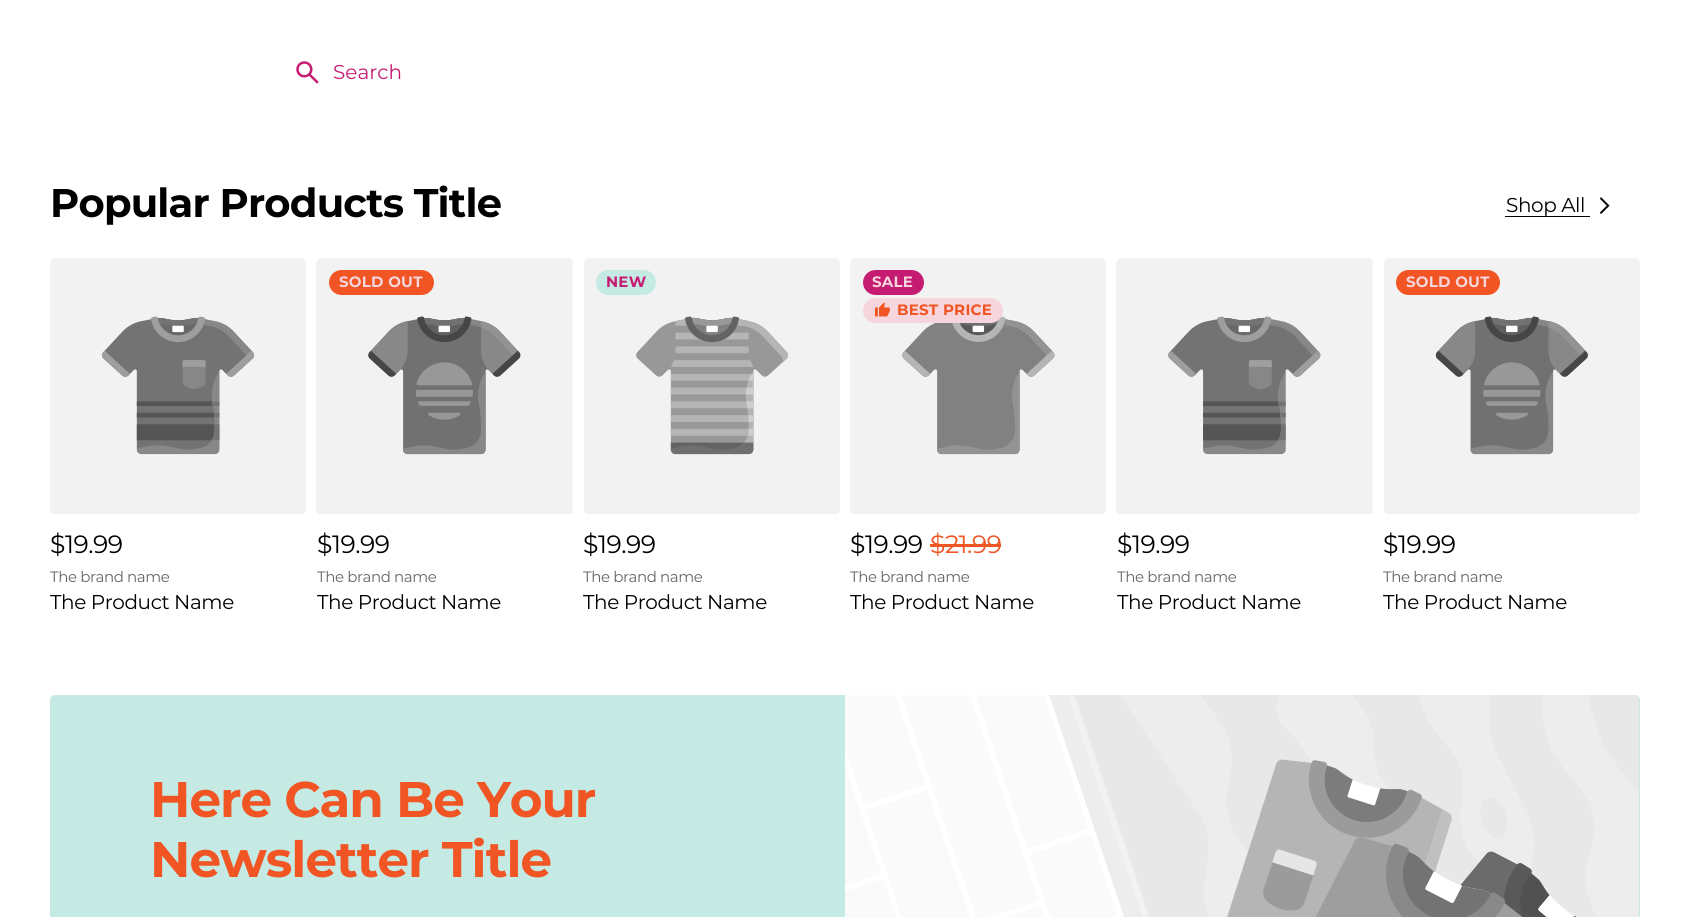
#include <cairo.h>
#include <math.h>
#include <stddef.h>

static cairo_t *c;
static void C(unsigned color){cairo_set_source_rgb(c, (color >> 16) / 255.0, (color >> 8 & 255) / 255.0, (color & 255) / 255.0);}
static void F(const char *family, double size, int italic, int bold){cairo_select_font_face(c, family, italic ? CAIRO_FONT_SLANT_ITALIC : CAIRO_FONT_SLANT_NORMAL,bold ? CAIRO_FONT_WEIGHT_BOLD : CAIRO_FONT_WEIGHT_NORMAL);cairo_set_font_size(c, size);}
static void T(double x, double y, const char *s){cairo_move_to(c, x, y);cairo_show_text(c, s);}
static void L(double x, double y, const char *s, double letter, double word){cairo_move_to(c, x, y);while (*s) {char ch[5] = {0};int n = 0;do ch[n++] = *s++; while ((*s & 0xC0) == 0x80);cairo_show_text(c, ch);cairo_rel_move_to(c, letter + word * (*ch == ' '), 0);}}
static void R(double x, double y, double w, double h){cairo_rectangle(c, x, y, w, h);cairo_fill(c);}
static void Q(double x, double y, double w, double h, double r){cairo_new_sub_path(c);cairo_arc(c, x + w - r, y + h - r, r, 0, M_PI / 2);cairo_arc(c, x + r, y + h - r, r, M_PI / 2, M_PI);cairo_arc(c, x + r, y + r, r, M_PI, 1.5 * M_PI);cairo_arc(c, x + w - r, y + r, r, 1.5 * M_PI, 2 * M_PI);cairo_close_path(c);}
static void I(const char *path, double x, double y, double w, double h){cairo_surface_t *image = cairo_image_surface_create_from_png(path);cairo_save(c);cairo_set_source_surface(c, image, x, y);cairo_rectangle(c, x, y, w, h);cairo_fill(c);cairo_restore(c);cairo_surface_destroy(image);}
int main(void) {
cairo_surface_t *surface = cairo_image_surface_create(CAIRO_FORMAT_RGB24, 1708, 917);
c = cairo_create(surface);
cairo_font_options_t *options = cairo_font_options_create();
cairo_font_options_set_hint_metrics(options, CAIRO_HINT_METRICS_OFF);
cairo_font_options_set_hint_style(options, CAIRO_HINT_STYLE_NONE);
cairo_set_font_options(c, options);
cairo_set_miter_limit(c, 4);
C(0xffffff);
cairo_paint(c);
I("1.png",296,61,23,23);
F("Montserrat",20,0,0);
C(0xc61b72);
T(333,79,"Search");
F("Montserrat",40,0,1);
C(0x000000);
L(50,217,"Popular Products Title",-.8,0);
F("Montserrat",20,0,0);
L(1506,212,"Shop All",-.4,0);
R(1505,216,85,1);
I("2.png",1599,197,11,17);
I("3.png",50,258,256,256);
F("Montserrat",25,0,0);
L(50,553,"$19.99",-.5,0);
F("Montserrat",15,0,0);
C(0x656565);
L(50,582,"The brand name",-.4,0);
F("Montserrat",20,0,0);
C(0x000000);
L(50,609,"The Product Name",-.4,0);
I("4.png",316,258,257,256);
C(0xf05523);
Q(329,270,105,25,12.5);
cairo_fill(c);
F("Montserrat",15,0,1);
C(0xf6d5dc);
L(339,287,"SOLD OUT",.25,0);
F("Montserrat",25,0,0);
C(0x000000);
L(317,553,"$19.99",-.5,0);
F("Montserrat",15,0,0);
C(0x656565);
L(317,582,"The brand name",-.4,0);
F("Montserrat",20,0,0);
C(0x000000);
L(317,609,"The Product Name",-.4,0);
I("5.png",584,258,256,256);
C(0xc5eae3);
Q(596,270,60,25,12.5);
cairo_fill(c);
F("Montserrat",15,0,1);
C(0xc61b72);
L(606,287,"NEW",.25,0);
F("Montserrat",25,0,0);
C(0x000000);
L(583,553,"$19.99",-.5,0);
F("Montserrat",15,0,0);
C(0x656565);
L(583,582,"The brand name",-.4,0);
F("Montserrat",20,0,0);
C(0x000000);
L(583,609,"The Product Name",-.4,0);
I("6.png",850,258,256,256);
C(0xc61b72);
Q(863,270,61,25,12.5);
cairo_fill(c);
F("Montserrat",15,0,1);
C(0xf6d5dc);
L(872,287,"SALE",.25,0);
Q(863,298,140,25,12.5);
cairo_fill(c);
I("7.png",875,302,15,15);
C(0xf05523);
L(897,315,"BEST PRICE",.25,0);
F("Montserrat",25,0,0);
C(0x000000);
L(850,553,"$19.99",-.5,0);
C(0xf05523);
L(930,553,"$21.99",-.5,0);
R(930,544,71,3);
F("Montserrat",15,0,0);
C(0x656565);
L(850,582,"The brand name",-.4,0);
F("Montserrat",20,0,0);
C(0x000000);
L(850,609,"The Product Name",-.4,0);
I("8.png",1116,258,257,256);
F("Montserrat",25,0,0);
L(1117,553,"$19.99",-.5,0);
F("Montserrat",15,0,0);
C(0x656565);
L(1117,582,"The brand name",-.4,0);
F("Montserrat",20,0,0);
C(0x000000);
L(1117,609,"The Product Name",-.4,0);
I("9.png",1384,258,256,256);
C(0xf05523);
Q(1396,270,104,25,12.5);
cairo_fill(c);
F("Montserrat",15,0,1);
C(0xf6d5dc);
L(1406,287,"SOLD OUT",.25,0);
F("Montserrat",25,0,0);
C(0x000000);
L(1383,553,"$19.99",-.5,0);
F("Montserrat",15,0,0);
C(0x656565);
L(1383,582,"The brand name",-.4,0);
F("Montserrat",20,0,0);
C(0x000000);
L(1383,609,"The Product Name",-.4,0);
C(0xc5eae3);
Q(50,695,1590,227,5);
cairo_fill(c);
F("Montserrat",50,0,1);
C(0xf05523);
L(150,817,"Here Can Be Your",-1,0);
L(150,877,"Newsletter Title",-1,0);
I("10.png",845,695,794,222);
cairo_surface_write_to_png(surface, "o.png");
cairo_font_options_destroy(options);
cairo_destroy(c);
cairo_surface_destroy(surface);
return 0;
}
